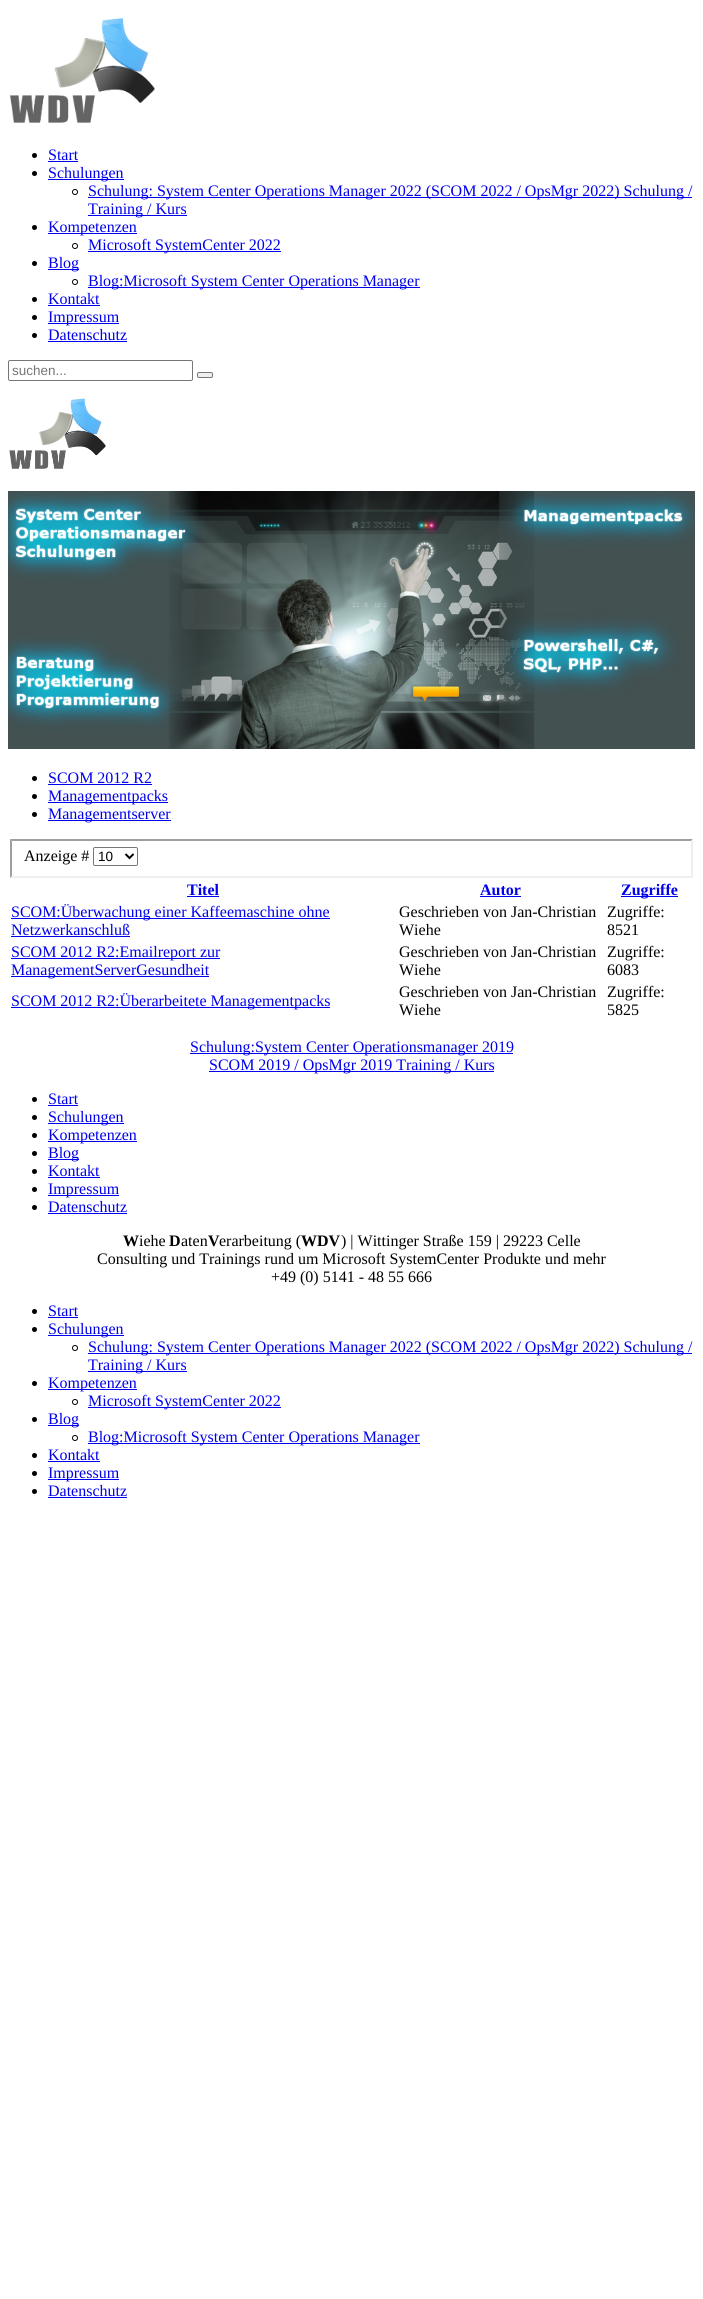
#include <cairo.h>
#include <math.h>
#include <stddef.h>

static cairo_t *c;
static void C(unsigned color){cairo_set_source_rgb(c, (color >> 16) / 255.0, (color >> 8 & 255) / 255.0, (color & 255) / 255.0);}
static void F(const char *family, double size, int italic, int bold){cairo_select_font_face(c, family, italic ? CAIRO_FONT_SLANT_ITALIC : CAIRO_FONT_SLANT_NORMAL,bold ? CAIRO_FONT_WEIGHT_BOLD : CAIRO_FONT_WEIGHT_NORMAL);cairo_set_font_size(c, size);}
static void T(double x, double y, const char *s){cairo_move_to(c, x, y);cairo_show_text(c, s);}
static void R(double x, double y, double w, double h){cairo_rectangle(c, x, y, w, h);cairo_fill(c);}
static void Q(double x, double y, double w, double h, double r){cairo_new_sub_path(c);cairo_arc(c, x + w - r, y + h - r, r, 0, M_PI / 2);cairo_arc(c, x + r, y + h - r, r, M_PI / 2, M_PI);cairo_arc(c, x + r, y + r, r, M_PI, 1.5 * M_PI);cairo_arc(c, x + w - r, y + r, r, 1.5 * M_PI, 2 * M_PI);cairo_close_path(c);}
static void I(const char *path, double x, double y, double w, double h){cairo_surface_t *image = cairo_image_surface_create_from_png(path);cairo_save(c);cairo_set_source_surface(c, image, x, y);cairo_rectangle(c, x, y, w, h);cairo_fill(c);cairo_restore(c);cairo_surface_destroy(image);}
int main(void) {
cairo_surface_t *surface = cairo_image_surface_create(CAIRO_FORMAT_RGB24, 703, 2299);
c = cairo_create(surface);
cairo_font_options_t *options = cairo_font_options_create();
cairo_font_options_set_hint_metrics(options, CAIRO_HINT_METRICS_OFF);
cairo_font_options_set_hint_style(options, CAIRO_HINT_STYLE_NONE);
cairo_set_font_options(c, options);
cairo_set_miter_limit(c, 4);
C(0xffffff);
cairo_paint(c);
I("1.png",9,18,146,105);
C(0x000000);
cairo_arc(c,34.5,155.5,2.5,0,2 * M_PI);
cairo_fill(c);
F("Liberation Serif",16,0,0);
C(0x0000ee);
T(48,160,"Start");
R(48,161,30,1);
C(0x000000);
cairo_new_path(c);
cairo_arc(c,34.5,173.5,2.5,0,2 * M_PI);
cairo_fill(c);
C(0x0000ee);
R(48,179,76,1);
T(48,178,"Schulungen");
cairo_new_path(c);
cairo_arc(c,75,192,2.5,0,2 * M_PI);
C(0x000000);
cairo_set_line_width(c,1);
cairo_stroke(c);
C(0x0000ee);
R(88,197,604,1);
T(88,196,"Schulung: System Center Operations Manager 2022 (SCOM 2022 / OpsMgr 2022) Schulung /");
R(88,215,99,1);
T(88,214,"Training / Kurs");
C(0x000000);
cairo_new_path(c);
cairo_arc(c,34.5,227.5,2.5,0,2 * M_PI);
cairo_fill(c);
C(0x0000ee);
R(48,233,89,1);
T(48,232,"Kompetenzen");
cairo_new_path(c);
cairo_arc(c,75,246,2.5,0,2 * M_PI);
C(0x000000);
cairo_stroke(c);
C(0x0000ee);
R(88,251,193,1);
T(88,250,"Microsoft SystemCenter 2022");
C(0x000000);
cairo_new_path(c);
cairo_arc(c,34.5,263.5,2.5,0,2 * M_PI);
cairo_fill(c);
C(0x0000ee);
R(48,269,31,1);
T(48,268,"Blog");
cairo_new_path(c);
cairo_arc(c,75,282,2.5,0,2 * M_PI);
C(0x000000);
cairo_stroke(c);
C(0x0000ee);
R(88,287,332,1);
T(88,286,"Blog:Microsoft System Center Operations Manager");
C(0x000000);
cairo_new_path(c);
cairo_arc(c,34.5,299.5,2.5,0,2 * M_PI);
cairo_fill(c);
C(0x0000ee);
T(48,304,"Kontakt");
R(48,305,52,1);
C(0x000000);
cairo_new_path(c);
cairo_arc(c,34.5,317.5,2.5,0,2 * M_PI);
cairo_fill(c);
C(0x0000ee);
R(48,323,71,1);
T(48,322,"Impressum");
C(0x000000);
cairo_new_path(c);
cairo_arc(c,34.5,335.5,2.5,0,2 * M_PI);
cairo_fill(c);
C(0x0000ee);
T(48,340,"Datenschutz");
R(48,341,79,1);
Q(8.5,360.5,184,20,1.5);
C(0x767676);
cairo_stroke(c);
F("Liberation Sans",13.5,0,0);
C(0x757575);
T(12,375,"suchen...");
C(0xefefef);
Q(197.5,372.5,15,5,1.5);
cairo_fill_preserve(c);
C(0x767676);
cairo_stroke(c);
I("2.png",9,398,97,71);
I("3.png",8,491,687,258);
C(0x000000);
cairo_arc(c,34.5,778.5,2.5,0,2 * M_PI);
cairo_fill(c);
F("Liberation Serif",16,0,0);
C(0x0000ee);
T(48,783,"SCOM 2012 R2");
R(48,784,104,1);
C(0x000000);
cairo_new_path(c);
cairo_arc(c,34.5,796.5,2.5,0,2 * M_PI);
cairo_fill(c);
C(0x0000ee);
R(48,802,120,1);
T(48,801,"Managementpacks");
C(0x000000);
cairo_new_path(c);
cairo_arc(c,34.5,814.5,2.5,0,2 * M_PI);
cairo_fill(c);
C(0x0000ee);
R(48,820,123,1);
T(48,819,"Managementserver");
C(0x9f9f9f);
cairo_new_path(c);
cairo_move_to(c,10,839);
cairo_line_to(c,693,839);
cairo_line_to(c,691,841);
cairo_line_to(c,12,841);
cairo_close_path(c);
cairo_fill(c);
C(0xefefef);
cairo_new_path(c);
cairo_move_to(c,693,839);
cairo_line_to(c,693,878);
cairo_line_to(c,691,876);
cairo_line_to(c,691,841);
cairo_close_path(c);
cairo_fill(c);
cairo_new_path(c);
cairo_move_to(c,693,878);
cairo_line_to(c,10,878);
cairo_line_to(c,12,876);
cairo_line_to(c,691,876);
cairo_close_path(c);
cairo_fill(c);
C(0x9f9f9f);
cairo_new_path(c);
cairo_move_to(c,10,878);
cairo_line_to(c,10,839);
cairo_line_to(c,12,841);
cairo_line_to(c,12,876);
cairo_close_path(c);
cairo_fill(c);
C(0x000000);
T(24,861,"Anzeige #");
Q(93.5,847.5,44,18,1.5);
C(0x767676);
cairo_stroke(c);
cairo_new_path(c);
cairo_move_to(c,125.5,854);
cairo_line_to(c,129.5,858);
cairo_line_to(c,133.5,854);
C(0x000000);
cairo_set_line_width(c,2);
cairo_stroke(c);
F("Liberation Sans",13.5,0,0);
T(98,861,"10");
F("Liberation Serif",16,0,1);
C(0x0000ee);
T(187,895,"Titel");
R(187,896,32,1);
T(480,895,"Autor");
R(480,896,41,1);
R(621,896,57,1);
T(621,895,"Zugriffe");
R(11,918,319,1);
F("Liberation Serif",16,0,0);
T(11,917,"SCOM:Überwachung einer Kaffeemaschine ohne");
T(11,935,"Netzwerkanschluß");
R(11,936,119,1);
C(0x000000);
T(399,917,"Geschrieben von Jan-Christian");
T(399,935,"Wiehe");
T(607,917,"Zugriffe:");
T(607,935,"8521");
C(0x0000ee);
R(11,958,209,1);
T(11,957,"SCOM 2012 R2:Emailreport zur");
R(11,976,198,1);
T(11,975,"ManagementServerGesundheit");
C(0x000000);
T(399,957,"Geschrieben von Jan-Christian");
T(399,975,"Wiehe");
T(607,957,"Zugriffe:");
T(607,975,"6083");
C(0x0000ee);
R(11,1007,319,1);
T(11,1006,"SCOM 2012 R2:Überarbeitete Managementpacks");
C(0x000000);
T(399,997,"Geschrieben von Jan-Christian");
T(399,1015,"Wiehe");
T(607,997,"Zugriffe:");
T(607,1015,"5825");
C(0x0000ee);
R(190,1053,323,1);
T(190,1052,"Schulung:System Center Operationsmanager 2019");
R(209,1071,285,1);
T(209,1070,"SCOM 2019 / OpsMgr 2019 Training / Kurs");
C(0x000000);
cairo_new_path(c);
cairo_arc(c,34.5,1099.5,2.5,0,2 * M_PI);
cairo_fill(c);
C(0x0000ee);
T(48,1104,"Start");
R(48,1105,30,1);
C(0x000000);
cairo_new_path(c);
cairo_arc(c,34.5,1117.5,2.5,0,2 * M_PI);
cairo_fill(c);
C(0x0000ee);
R(48,1123,76,1);
T(48,1122,"Schulungen");
C(0x000000);
cairo_new_path(c);
cairo_arc(c,34.5,1135.5,2.5,0,2 * M_PI);
cairo_fill(c);
C(0x0000ee);
R(48,1141,89,1);
T(48,1140,"Kompetenzen");
C(0x000000);
cairo_new_path(c);
cairo_arc(c,34.5,1153.5,2.5,0,2 * M_PI);
cairo_fill(c);
C(0x0000ee);
R(48,1159,31,1);
T(48,1158,"Blog");
C(0x000000);
cairo_new_path(c);
cairo_arc(c,34.5,1171.5,2.5,0,2 * M_PI);
cairo_fill(c);
C(0x0000ee);
T(48,1176,"Kontakt");
R(48,1177,52,1);
C(0x000000);
cairo_new_path(c);
cairo_arc(c,34.5,1189.5,2.5,0,2 * M_PI);
cairo_fill(c);
C(0x0000ee);
R(48,1195,71,1);
T(48,1194,"Impressum");
C(0x000000);
cairo_new_path(c);
cairo_arc(c,34.5,1207.5,2.5,0,2 * M_PI);
cairo_fill(c);
C(0x0000ee);
T(48,1212,"Datenschutz");
R(48,1213,79,1);
F("Liberation Serif",16,0,1);
C(0x000000);
T(123,1246,"W");
F("Liberation Serif",16,0,0);
T(139,1246,"iehe");
F("Liberation Serif",16,0,1);
T(169,1246,"D");
F("Liberation Serif",16,0,0);
T(181,1246,"aten");
F("Liberation Serif",16,0,1);
T(208,1246,"V");
F("Liberation Serif",16,0,0);
T(219,1246,"erarbeitung (");
F("Liberation Serif",16,0,1);
T(301,1246,"WDV");
F("Liberation Serif",16,0,0);
T(341,1246,") | Wittinger Straße 159 | 29223 Celle");
T(97,1264,"Consulting und Trainings rund um Microsoft SystemCenter Produkte und mehr");
T(271,1282,"+49 (0) 5141 - 48 55 666");
cairo_new_path(c);
cairo_arc(c,34.5,1311.5,2.5,0,2 * M_PI);
cairo_fill(c);
C(0x0000ee);
T(48,1316,"Start");
R(48,1317,30,1);
C(0x000000);
cairo_new_path(c);
cairo_arc(c,34.5,1329.5,2.5,0,2 * M_PI);
cairo_fill(c);
C(0x0000ee);
R(48,1335,76,1);
T(48,1334,"Schulungen");
cairo_new_path(c);
cairo_arc(c,75,1348,2.5,0,2 * M_PI);
C(0x000000);
cairo_set_line_width(c,1);
cairo_stroke(c);
C(0x0000ee);
R(88,1353,604,1);
T(88,1352,"Schulung: System Center Operations Manager 2022 (SCOM 2022 / OpsMgr 2022) Schulung /");
R(88,1371,99,1);
T(88,1370,"Training / Kurs");
C(0x000000);
cairo_new_path(c);
cairo_arc(c,34.5,1383.5,2.5,0,2 * M_PI);
cairo_fill(c);
C(0x0000ee);
R(48,1389,89,1);
T(48,1388,"Kompetenzen");
cairo_new_path(c);
cairo_arc(c,75,1402,2.5,0,2 * M_PI);
C(0x000000);
cairo_stroke(c);
C(0x0000ee);
R(88,1407,193,1);
T(88,1406,"Microsoft SystemCenter 2022");
C(0x000000);
cairo_new_path(c);
cairo_arc(c,34.5,1419.5,2.5,0,2 * M_PI);
cairo_fill(c);
C(0x0000ee);
R(48,1425,31,1);
T(48,1424,"Blog");
cairo_new_path(c);
cairo_arc(c,75,1438,2.5,0,2 * M_PI);
C(0x000000);
cairo_stroke(c);
C(0x0000ee);
R(88,1443,332,1);
T(88,1442,"Blog:Microsoft System Center Operations Manager");
C(0x000000);
cairo_new_path(c);
cairo_arc(c,34.5,1455.5,2.5,0,2 * M_PI);
cairo_fill(c);
C(0x0000ee);
T(48,1460,"Kontakt");
R(48,1461,52,1);
C(0x000000);
cairo_new_path(c);
cairo_arc(c,34.5,1473.5,2.5,0,2 * M_PI);
cairo_fill(c);
C(0x0000ee);
R(48,1479,71,1);
T(48,1478,"Impressum");
C(0x000000);
cairo_new_path(c);
cairo_arc(c,34.5,1491.5,2.5,0,2 * M_PI);
cairo_fill(c);
C(0x0000ee);
T(48,1496,"Datenschutz");
R(48,1497,79,1);
cairo_surface_write_to_png(surface, "o.png");
cairo_font_options_destroy(options);
cairo_destroy(c);
cairo_surface_destroy(surface);
return 0;
}
